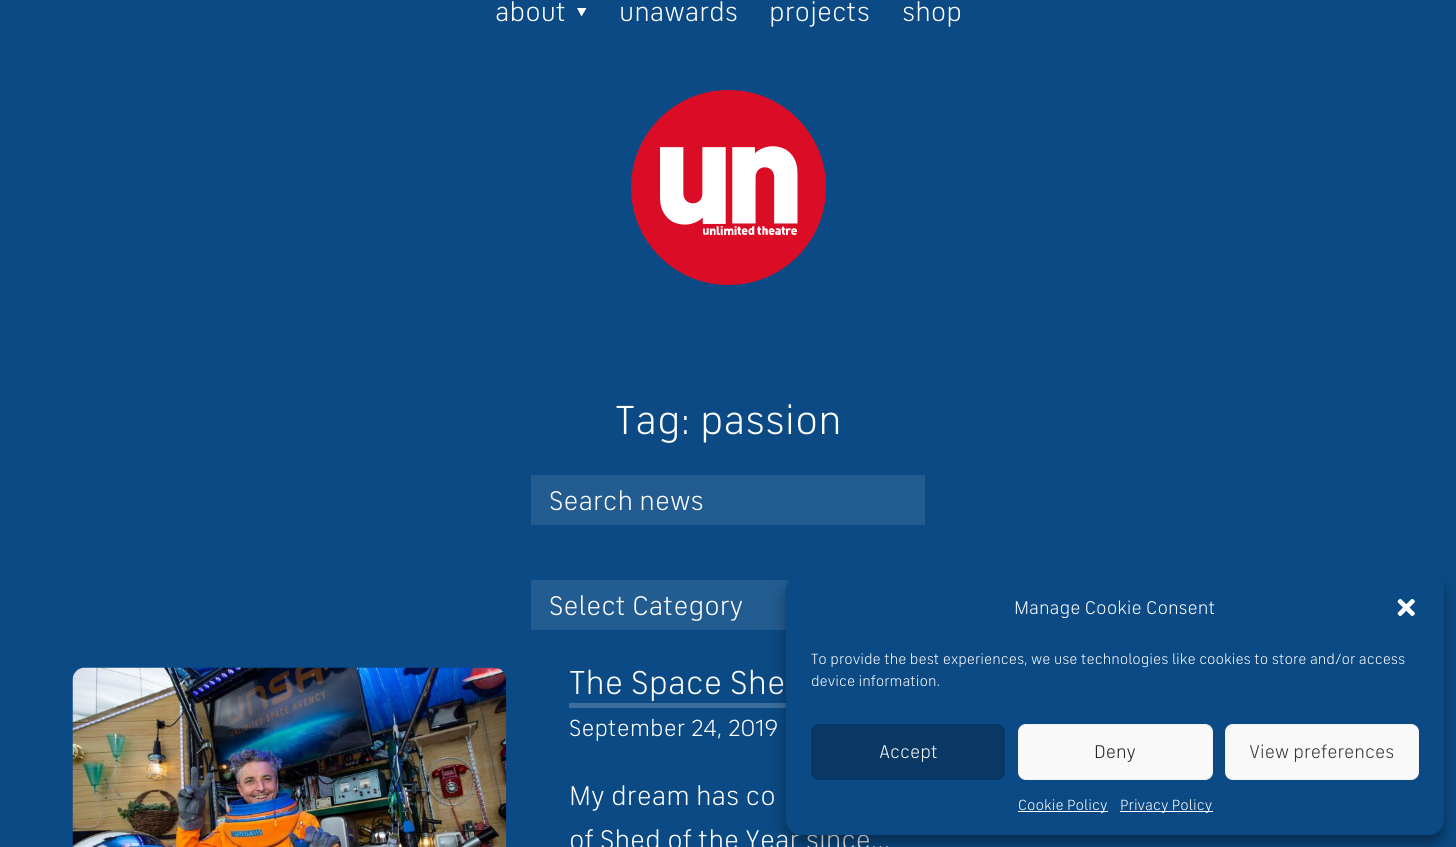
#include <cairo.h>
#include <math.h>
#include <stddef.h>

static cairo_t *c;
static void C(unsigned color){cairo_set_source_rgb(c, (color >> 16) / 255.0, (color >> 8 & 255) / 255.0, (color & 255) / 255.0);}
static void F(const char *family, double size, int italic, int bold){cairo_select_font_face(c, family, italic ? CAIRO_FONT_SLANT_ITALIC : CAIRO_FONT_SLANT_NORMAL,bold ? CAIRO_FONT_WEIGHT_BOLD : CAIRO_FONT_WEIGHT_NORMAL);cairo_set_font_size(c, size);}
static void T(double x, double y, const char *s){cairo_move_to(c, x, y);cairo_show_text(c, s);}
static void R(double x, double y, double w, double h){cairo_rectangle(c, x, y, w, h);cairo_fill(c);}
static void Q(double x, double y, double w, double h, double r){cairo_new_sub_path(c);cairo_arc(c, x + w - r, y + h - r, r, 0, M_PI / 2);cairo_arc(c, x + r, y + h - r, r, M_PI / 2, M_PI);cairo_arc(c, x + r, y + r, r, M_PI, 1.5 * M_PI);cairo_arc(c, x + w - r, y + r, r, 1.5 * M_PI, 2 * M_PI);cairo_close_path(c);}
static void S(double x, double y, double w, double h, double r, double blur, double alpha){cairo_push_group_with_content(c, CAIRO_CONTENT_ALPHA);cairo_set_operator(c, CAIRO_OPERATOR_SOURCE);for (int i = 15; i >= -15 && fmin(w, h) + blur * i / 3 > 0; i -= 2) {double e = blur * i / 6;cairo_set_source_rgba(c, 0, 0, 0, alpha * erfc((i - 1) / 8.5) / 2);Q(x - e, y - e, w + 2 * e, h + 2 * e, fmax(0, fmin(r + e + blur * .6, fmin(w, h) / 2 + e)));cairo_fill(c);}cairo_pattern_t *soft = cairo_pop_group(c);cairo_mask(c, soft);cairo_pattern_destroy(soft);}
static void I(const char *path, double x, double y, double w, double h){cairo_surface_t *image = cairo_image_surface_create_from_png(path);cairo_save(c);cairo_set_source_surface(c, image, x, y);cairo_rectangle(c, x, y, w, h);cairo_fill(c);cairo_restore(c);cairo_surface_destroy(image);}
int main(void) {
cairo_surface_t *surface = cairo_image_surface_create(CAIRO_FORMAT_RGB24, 1456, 847);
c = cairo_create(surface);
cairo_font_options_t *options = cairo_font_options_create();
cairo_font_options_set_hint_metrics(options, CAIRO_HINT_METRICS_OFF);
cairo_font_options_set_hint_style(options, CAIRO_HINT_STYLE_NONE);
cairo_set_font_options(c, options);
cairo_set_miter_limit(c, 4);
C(0x0b4a84);
cairo_paint(c);
F("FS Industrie",27.5,0,0);
C(0xffffff);
T(495,21,"about");
cairo_save(c);
cairo_rectangle(c,576,8,12,8);
cairo_clip(c);
cairo_new_path(c);
cairo_move_to(c,581.5,16.5);
cairo_line_to(c,576.5,7);
cairo_line_to(c,587,7);
cairo_line_to(c,584.5,11.5);
cairo_close_path(c);
cairo_fill(c);
cairo_restore(c);
T(619,21,"unawards");
T(769,21,"projects");
T(902,21,"shop");
C(0xdb0d26);
cairo_new_path(c);
cairo_arc(c,728.5,187.5,97.5,0,2 * M_PI);
cairo_fill(c);
I("1.png",660,146,138,89);
F("FS Industrie",41.25,0,0);
C(0xffffff);
T(615,434,"Tag: passion");
C(0x235c90);
R(531,475,394,50);
F("FS Industrie",27.5,0,0);
C(0xffffff);
T(549,510,"Search news");
C(0x235c90);
R(531,580,258,50);
C(0xffffff);
T(549,615,"Select Category");
I("2.png",72,667,435,180);
F("FS Industrie",33.75,0,0);
T(569,694,"The Space She");
C(0x3c6e9d);
R(569,703,217,5);
F("FS Industrie",23.75,0,0);
C(0xffffff);
T(569,736,"September 24, 2019");
F("FS Industrie",27.5,0,0);
T(569,805,"My dream has co");
T(569,849,"of Shed of the Year since...");
C(0x000000);
S(786,581,658,262,15,4,.23);
S(786,586,658,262,15,12.5,.19);
C(0x0b4a84);
Q(786,574,658,261,15);
cairo_fill(c);
F("FS Industrie",18.75,0,0);
C(0xffffff);
T(1014,614,"Manage Cookie Consent");
I("3.png",1397,598,18,19);
F("FS Industrie",15,0,0);
T(811,664,"To provide the best experiences, we use technologies like cookies to store and/or access");
T(811,686,"device information.");
C(0x093864);
Q(811.5,724.5,193,55,7.5);
cairo_fill_preserve(c);
cairo_set_line_width(c,1);
cairo_stroke(c);
F("FS Industrie",18.75,0,0);
C(0xffffff);
T(879,758,"Accept");
C(0xf9f9f9);
Q(1018.5,724.5,194,55,7.5);
cairo_fill_preserve(c);
C(0xf2f2f2);
cairo_stroke(c);
C(0x222222);
T(1094,758,"Deny");
C(0xf9f9f9);
Q(1225.5,724.5,193,55,7.5);
cairo_fill_preserve(c);
C(0xf2f2f2);
cairo_stroke(c);
C(0x333333);
T(1249,758,"View preferences");
C(0xffffff);
R(1018,811,90,1);
F("FS Industrie",15,0,0);
T(1018,810,"Cookie Policy");
R(1120,811,93,1);
T(1120,810,"Privacy Policy");
cairo_surface_write_to_png(surface, "o.png");
cairo_font_options_destroy(options);
cairo_destroy(c);
cairo_surface_destroy(surface);
return 0;
}
